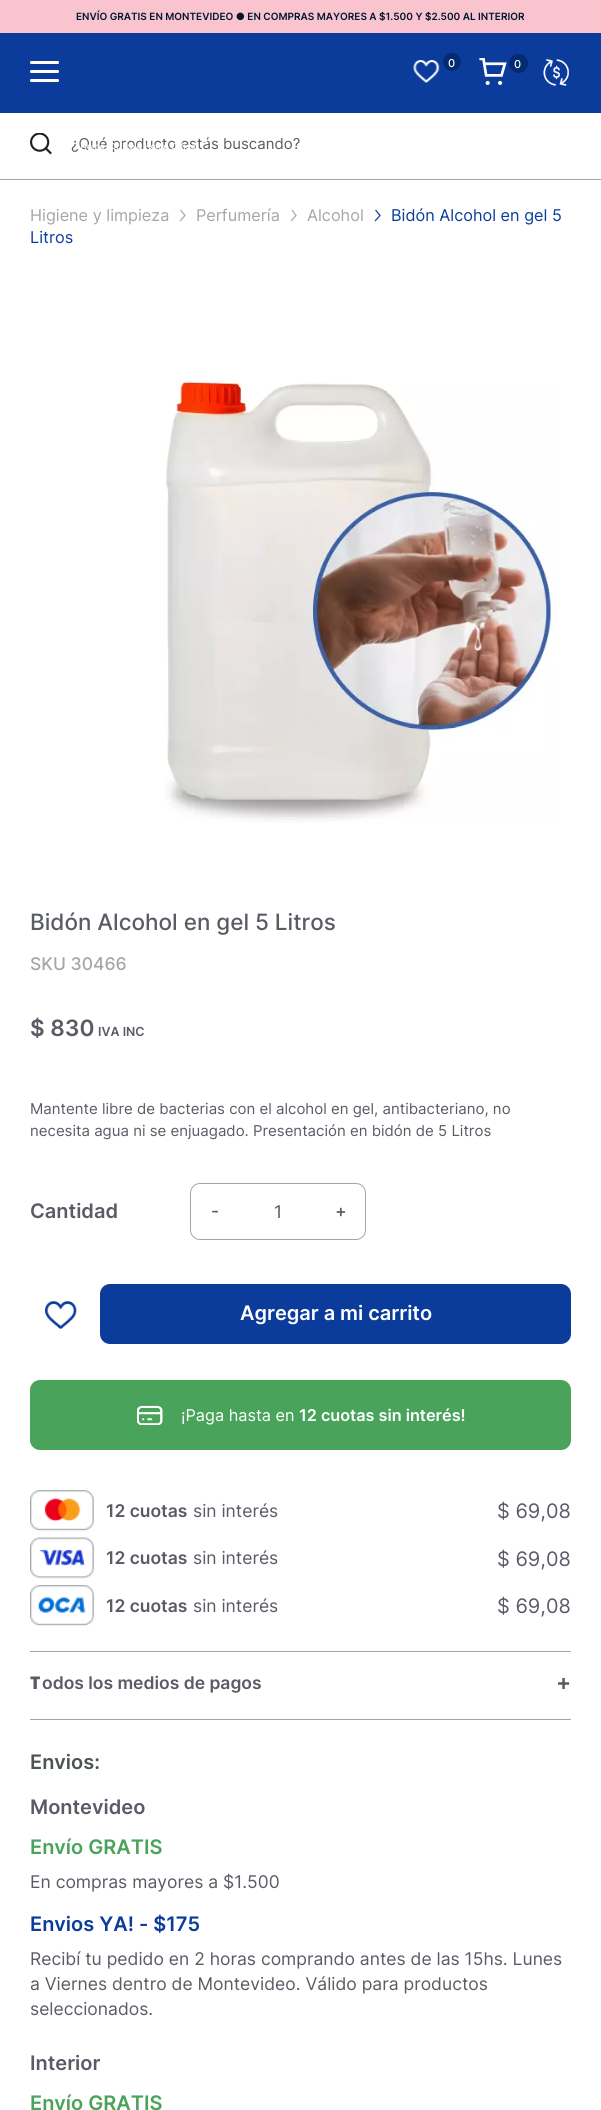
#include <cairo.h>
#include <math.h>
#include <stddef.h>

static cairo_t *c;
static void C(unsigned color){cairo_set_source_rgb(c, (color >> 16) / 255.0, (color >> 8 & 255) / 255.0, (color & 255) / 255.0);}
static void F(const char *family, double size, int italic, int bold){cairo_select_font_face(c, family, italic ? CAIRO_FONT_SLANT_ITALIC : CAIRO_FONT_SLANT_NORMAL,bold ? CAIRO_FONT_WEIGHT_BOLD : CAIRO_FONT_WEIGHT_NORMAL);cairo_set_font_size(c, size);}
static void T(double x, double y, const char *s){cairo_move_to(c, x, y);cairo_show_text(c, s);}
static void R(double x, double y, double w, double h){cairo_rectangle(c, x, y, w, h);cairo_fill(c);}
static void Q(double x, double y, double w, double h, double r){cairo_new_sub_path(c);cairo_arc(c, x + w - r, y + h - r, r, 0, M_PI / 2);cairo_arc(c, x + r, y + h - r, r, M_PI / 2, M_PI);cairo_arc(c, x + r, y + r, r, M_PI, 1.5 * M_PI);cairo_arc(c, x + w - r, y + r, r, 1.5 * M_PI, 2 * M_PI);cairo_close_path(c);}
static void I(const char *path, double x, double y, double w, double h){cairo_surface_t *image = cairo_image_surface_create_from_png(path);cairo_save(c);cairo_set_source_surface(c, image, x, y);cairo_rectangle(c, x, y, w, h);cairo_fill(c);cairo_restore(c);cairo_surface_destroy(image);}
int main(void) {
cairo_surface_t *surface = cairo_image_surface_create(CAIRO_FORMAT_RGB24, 601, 2110);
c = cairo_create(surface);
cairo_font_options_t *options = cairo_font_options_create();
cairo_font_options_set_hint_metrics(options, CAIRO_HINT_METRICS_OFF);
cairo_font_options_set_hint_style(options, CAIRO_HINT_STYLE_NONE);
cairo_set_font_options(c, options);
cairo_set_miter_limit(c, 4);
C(0xffffff);
cairo_paint(c);
C(0x0b3c9b);
R(0,33,601,80);
C(0xf9c4ce);
R(0,0,601,33);
F("Inter SemiBold",10,0,0);
C(0x001830);
T(76,20,"ENVÍO GRATIS EN MONTEVIDEO ● EN COMPRAS MAYORES A $1.500 Y $2.500 AL INTERIOR");
C(0xffffff);
cairo_new_path(c);
cairo_move_to(c,31.5,61);
cairo_line_to(c,45,61);
cairo_line_to(c,45,64);
cairo_line_to(c,31.5,64);
cairo_curve_to(c,30.5,64,30,63.5,30,62.5);
cairo_curve_to(c,30,61.5,30.5,61,31.5,61);
cairo_close_path(c);
cairo_fill(c);
cairo_new_path(c);
cairo_move_to(c,44,61);
cairo_line_to(c,57.5,61);
cairo_curve_to(c,58.5,61,59,61.5,59,62.5);
cairo_curve_to(c,59,63.5,58.5,64,57.5,64);
cairo_line_to(c,44,64);
cairo_close_path(c);
cairo_fill(c);
cairo_new_path(c);
cairo_move_to(c,31.5,70);
cairo_line_to(c,45,70);
cairo_line_to(c,45,73);
cairo_line_to(c,31.5,73);
cairo_curve_to(c,30.5,73,30,72.5,30,71.5);
cairo_curve_to(c,30,70.5,30.5,70,31.5,70);
cairo_close_path(c);
cairo_fill(c);
cairo_new_path(c);
cairo_move_to(c,44,70);
cairo_line_to(c,57.5,70);
cairo_curve_to(c,58.5,70,59,70.5,59,71.5);
cairo_curve_to(c,59,72.5,58.5,73,57.5,73);
cairo_line_to(c,44,73);
cairo_close_path(c);
cairo_fill(c);
cairo_new_path(c);
cairo_move_to(c,31.5,79);
cairo_line_to(c,45,79);
cairo_line_to(c,45,82);
cairo_line_to(c,31.5,82);
cairo_curve_to(c,30.5,82,30,81.5,30,80.5);
cairo_curve_to(c,30,79.5,30.5,79,31.5,79);
cairo_close_path(c);
cairo_fill(c);
cairo_new_path(c);
cairo_move_to(c,44,79);
cairo_line_to(c,57.5,79);
cairo_curve_to(c,58.5,79,59,79.5,59,80.5);
cairo_curve_to(c,59,81.5,58.5,82,57.5,82);
cairo_line_to(c,44,82);
cairo_close_path(c);
cairo_fill(c);
I("1.png",413,60,27,23);
C(0x032b70);
cairo_arc(c,452,62,9,0,2 * M_PI);
cairo_fill(c);
F("Inter Medium",11,0,0);
C(0xffffff);
T(448,67,"0");
I("2.png",479,58,28,27);
C(0x032b70);
cairo_arc(c,518.5,63.5,9.5,0,2 * M_PI);
cairo_fill(c);
C(0xffffff);
T(514,68,"0");
I("3.png",543,59,26,27);
F("Inter",15,0,0);
C(0x595c65);
T(71,149,"¿Qué producto estás buscando?");
I("4.png",81,138,127,12);
C(0xa3a7a8);
R(0,179,601,1);
I("5.png",30,133,22,22);
F("Inter",16.25,0,0);
T(30,221,"Higiene y limpieza");
cairo_new_path(c);
cairo_move_to(c,180,221);
cairo_line_to(c,185,215.5);
cairo_line_to(c,180.5,210);
C(0xa7a7a7);
cairo_set_line_width(c,1.2);
cairo_stroke(c);
C(0xa3a7a8);
T(196,221,"Perfumería");
cairo_new_path(c);
cairo_move_to(c,291,221);
cairo_line_to(c,296,215.5);
cairo_line_to(c,292,210);
C(0xa7a7a7);
cairo_stroke(c);
C(0xa3a7a8);
T(307,221,"Alcohol");
cairo_new_path(c);
cairo_move_to(c,375,221);
cairo_line_to(c,380,215.5);
cairo_line_to(c,375.5,210);
C(0x0b3c9b);
cairo_stroke(c);
T(391,221,"Bidón Alcohol en gel 5");
T(30,243,"Litros");
I("6.png",165,379,391,444);
F("Inter Medium",22.5,0,0);
C(0x595c65);
T(30,930,"Bidón Alcohol en gel 5 Litros");
F("Inter Medium",17.5,0,0);
C(0xa3a7a8);
T(30,970,"SKU 30466");
F("Inter SemiBold",22.5,0,0);
C(0x595c65);
T(30,1036,"$ 830");
F("Inter SemiBold",12.5,0,0);
T(98,1036,"IVA INC");
F("Inter",15,0,0);
T(30,1114,"Mantente libre de bacterias con el alcohol en gel, antibacteriano, no");
T(30,1136,"necesita agua ni se enjuagado. Presentación en bidón de 5 Litros");
F("Inter SemiBold",20,0,0);
T(30,1218,"Cantidad");
Q(190.5,1183.5,175,56,9.5);
C(0xa3a7a8);
cairo_set_line_width(c,1);
cairo_stroke(c);
F("Inter Medium",17.5,0,0);
C(0x595c65);
T(211,1217,"-");
F("Inter",17.5,0,0);
T(274,1218,"1");
F("Inter Medium",17.5,0,0);
T(335,1217,"+");
I("7.png",45,1301,32,28);
C(0x0b3c9b);
Q(100,1284,471,60,10);
cairo_fill(c);
F("Inter SemiBold",20,0,0);
C(0xffffff);
T(240,1320,"Agregar a mi carrito");
C(0x4aa35a);
Q(30,1380,541,70,10);
cairo_fill(c);
I("8.png",137,1405,26,20);
F("Inter",16.25,0,0);
C(0xffffff);
T(181,1421,"¡Paga hasta en");
F("Inter SemiBold",16.25,0,0);
T(299,1421,"12 cuotas sin interés!");
I("9.png",30,1490,64,41);
F("Inter SemiBold",17.5,0,0);
C(0x595c65);
T(106,1517,"12 cuotas");
F("Inter",17.5,0,0);
T(193,1517,"sin interés");
F("Inter",20,0,0);
T(497,1518,"$ 69,08");
I("10.png",30,1537,64,42);
F("Inter SemiBold",17.5,0,0);
T(106,1564,"12 cuotas");
F("Inter",17.5,0,0);
T(193,1564,"sin interés");
F("Inter",20,0,0);
T(497,1566,"$ 69,08");
I("11.png",30,1585,64,41);
F("Inter SemiBold",17.5,0,0);
T(106,1612,"12 cuotas");
F("Inter",17.5,0,0);
T(193,1612,"sin interés");
F("Inter",20,0,0);
T(497,1613,"$ 69,08");
C(0xa3a7a8);
R(30,1651,541,1);
R(30,1719,541,1);
F("Noto Sans Black",17.5,0,0);
C(0x595c65);
T(30,1689,"T");
F("Inter SemiBold",17.5,0,0);
T(42,1689,"odos los medios de pagos");
F("Inter SemiBold",22.5,0,0);
T(556,1690,"+");
F("Inter SemiBold",20,0,0);
C(0x4d5550);
T(30,1769,"Envios:");
C(0x595c65);
T(30,1814,"Montevideo");
C(0x4aa35a);
T(30,1854,"Envío GRATIS");
F("Inter",17.5,0,0);
C(0x595c65);
T(30,1888,"En compras mayores a $1.500");
F("Inter SemiBold",20,0,0);
C(0x0b3c9b);
T(30,1931,"Envios YA! - $175");
F("Inter",17.5,0,0);
C(0x595c65);
T(30,1965,"Recibí tu pedido en 2 horas comprando antes de las 15hs. Lunes");
T(30,1990,"a Viernes dentro de Montevideo. Válido para productos");
T(30,2015,"seleccionados.");
F("Inter SemiBold",20,0,0);
T(30,2070,"Interior");
C(0x4aa35a);
T(30,2110,"Envío GRATIS");
cairo_surface_write_to_png(surface, "o.png");
cairo_font_options_destroy(options);
cairo_destroy(c);
cairo_surface_destroy(surface);
return 0;
}
